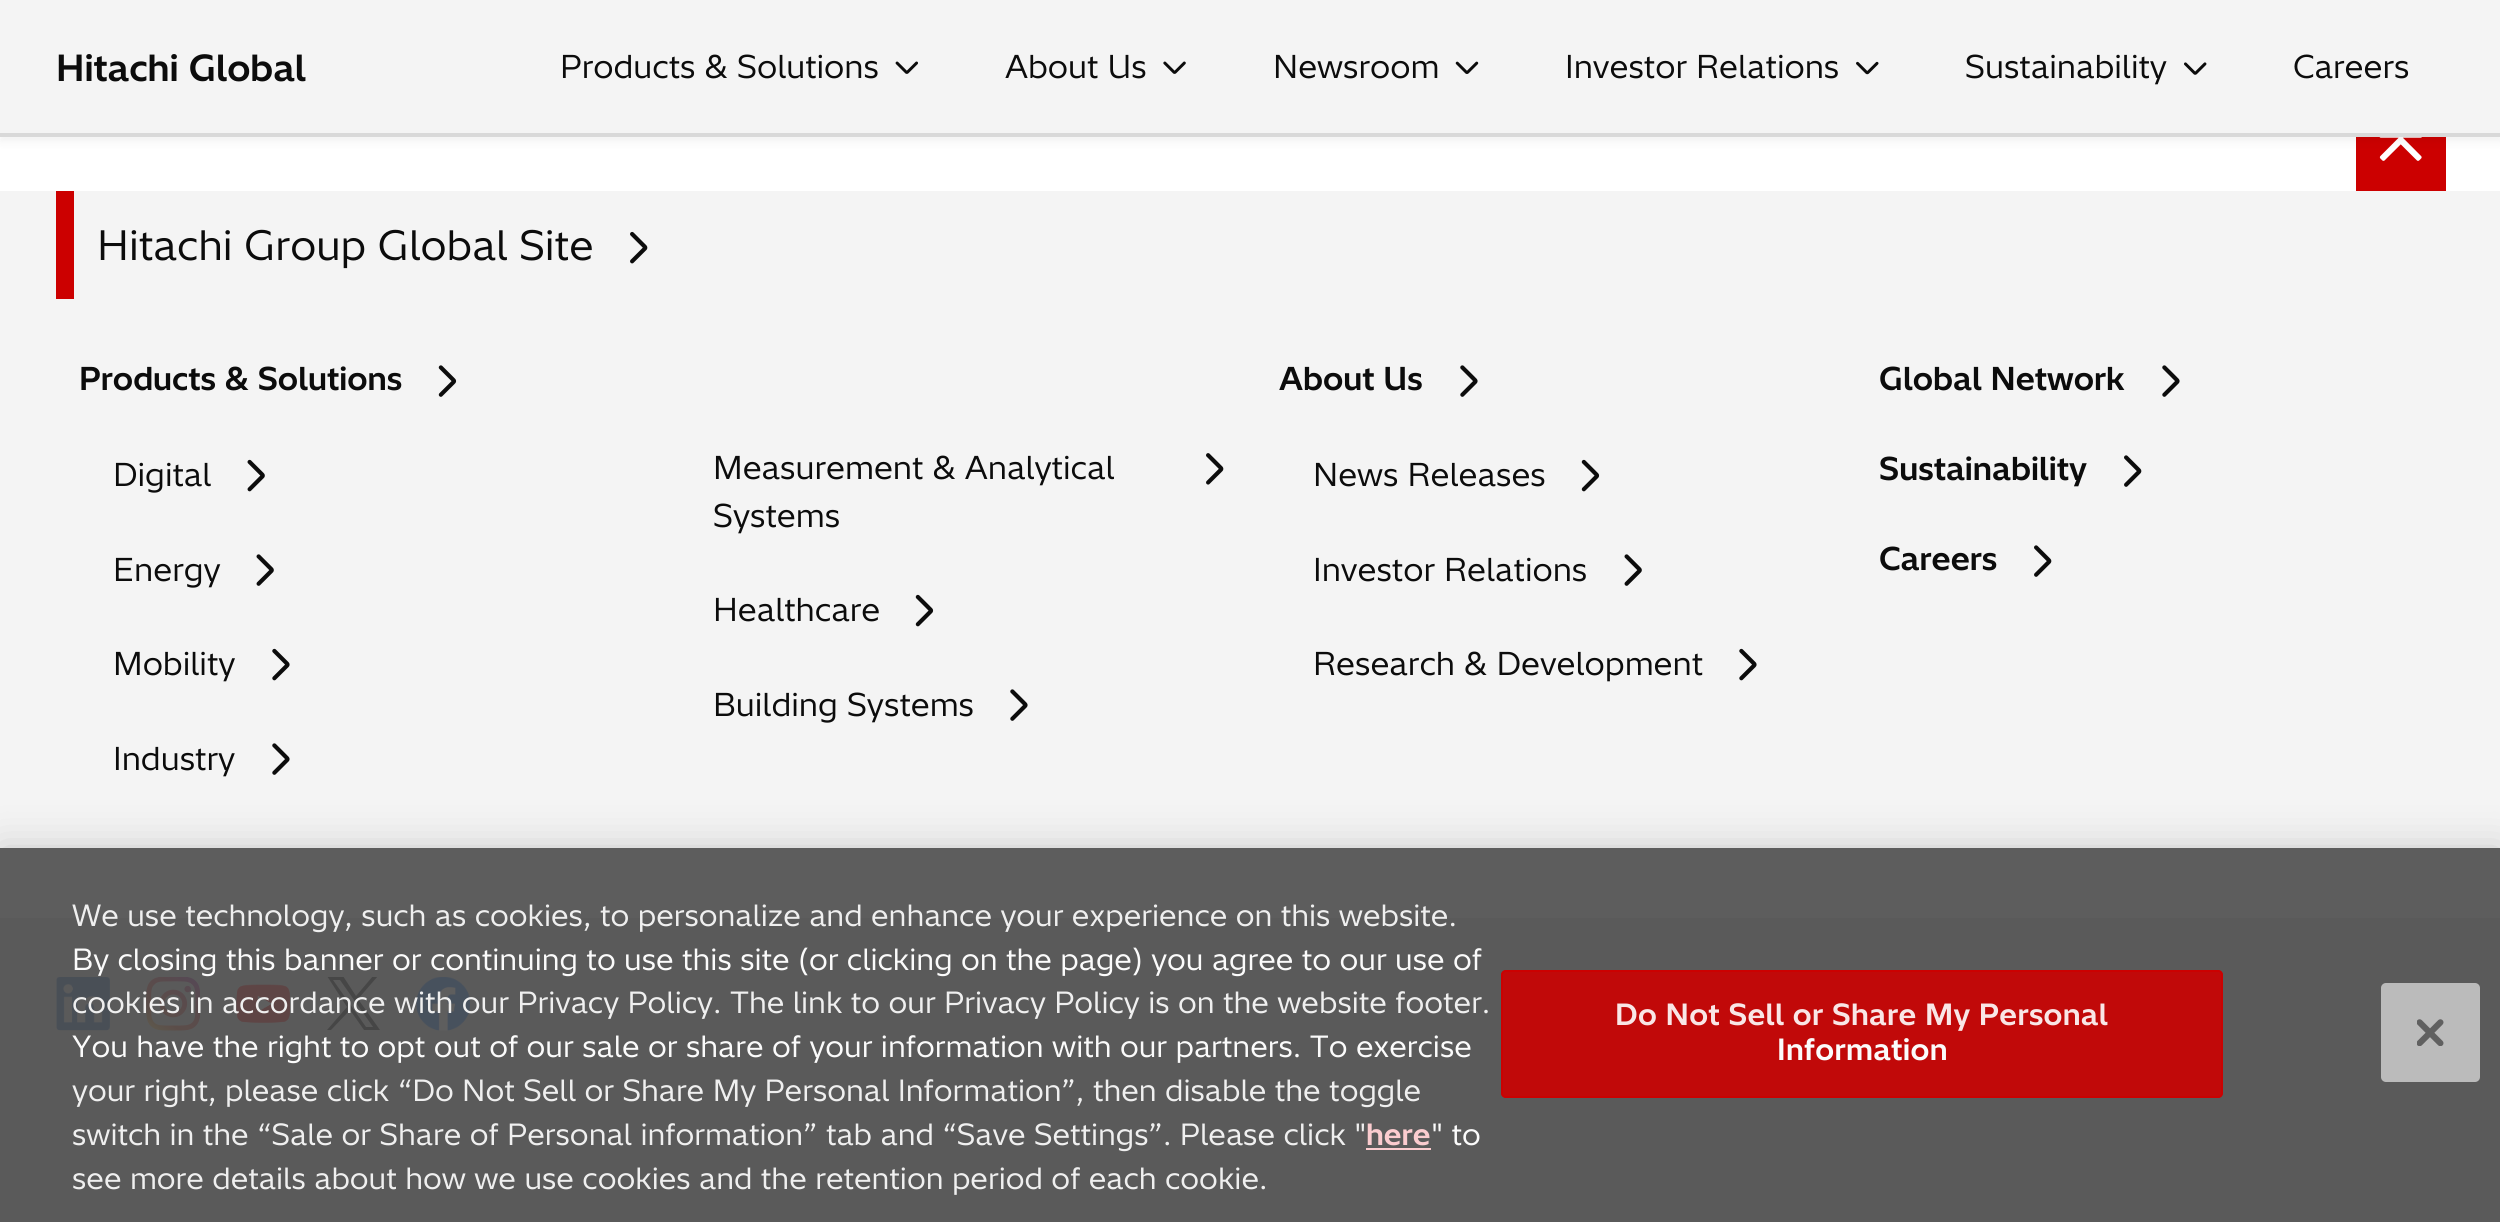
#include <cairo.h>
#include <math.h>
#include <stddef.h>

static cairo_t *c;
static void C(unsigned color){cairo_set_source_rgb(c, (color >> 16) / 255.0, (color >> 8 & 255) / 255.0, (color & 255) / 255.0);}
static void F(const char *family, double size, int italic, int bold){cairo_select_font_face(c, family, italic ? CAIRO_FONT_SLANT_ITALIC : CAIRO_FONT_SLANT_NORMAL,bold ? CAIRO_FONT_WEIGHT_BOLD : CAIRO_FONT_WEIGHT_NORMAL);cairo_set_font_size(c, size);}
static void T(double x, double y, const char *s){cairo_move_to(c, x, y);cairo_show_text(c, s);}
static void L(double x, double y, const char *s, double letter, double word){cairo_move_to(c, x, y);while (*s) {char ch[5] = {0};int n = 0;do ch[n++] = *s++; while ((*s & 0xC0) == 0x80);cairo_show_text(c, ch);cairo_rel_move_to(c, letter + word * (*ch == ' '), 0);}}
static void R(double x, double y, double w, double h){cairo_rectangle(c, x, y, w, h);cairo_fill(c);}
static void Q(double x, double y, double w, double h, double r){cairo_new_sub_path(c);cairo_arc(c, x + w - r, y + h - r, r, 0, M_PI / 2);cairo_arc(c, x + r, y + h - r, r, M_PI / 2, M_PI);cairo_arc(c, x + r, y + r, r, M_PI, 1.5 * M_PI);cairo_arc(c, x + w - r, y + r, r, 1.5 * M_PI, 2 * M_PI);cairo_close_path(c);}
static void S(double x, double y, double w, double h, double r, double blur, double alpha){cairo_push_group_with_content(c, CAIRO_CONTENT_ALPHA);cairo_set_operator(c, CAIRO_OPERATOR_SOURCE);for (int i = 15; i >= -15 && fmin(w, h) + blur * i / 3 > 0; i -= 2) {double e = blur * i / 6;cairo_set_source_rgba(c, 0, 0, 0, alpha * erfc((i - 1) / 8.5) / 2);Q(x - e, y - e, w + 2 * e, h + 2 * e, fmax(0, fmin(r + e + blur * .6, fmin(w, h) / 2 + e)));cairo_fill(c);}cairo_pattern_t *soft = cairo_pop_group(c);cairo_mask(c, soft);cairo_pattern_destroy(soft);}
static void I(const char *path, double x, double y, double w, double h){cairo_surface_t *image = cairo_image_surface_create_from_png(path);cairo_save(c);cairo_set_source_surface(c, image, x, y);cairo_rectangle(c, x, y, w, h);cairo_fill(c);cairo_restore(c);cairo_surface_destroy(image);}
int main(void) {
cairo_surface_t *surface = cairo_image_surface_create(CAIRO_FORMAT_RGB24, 2500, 1222);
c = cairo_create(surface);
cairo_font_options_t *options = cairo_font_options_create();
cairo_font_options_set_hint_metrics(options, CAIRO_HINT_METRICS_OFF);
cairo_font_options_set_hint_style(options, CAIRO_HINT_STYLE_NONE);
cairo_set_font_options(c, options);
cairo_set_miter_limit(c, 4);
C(0xffffff);
cairo_paint(c);
C(0xcc0000);
R(2356,137,90,54);
I("6.png",2379,137,43,24);
C(0x000000);
S(0,5,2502,137,0,4.5,.05);
C(0xf4f4f4);
R(0,0,2500,133);
C(0xd9d9d9);
R(0,133,2500,4);
F("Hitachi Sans",36,0,1);
C(0x0c0c0c);
T(56,81,"Hitachi Global");
F("Hitachi Sans",31.5,0,0);
T(560,78,"Products & Solutions");
I("1.png",895,61,23,13);
T(1005,78,"About Us");
I("2.png",1163,61,23,13);
T(1273,78,"Newsroom");
I("3.png",1455,61,24,13);
T(1565,78,"Investor Relations");
I("4.png",1856,61,23,14);
T(1965,78,"Sustainability");
I("5.png",2184,62,23,13);
T(2293,78,"Careers");
C(0xf4f4f4);
R(0,191,2500,727);
C(0xcc0000);
R(56,191,18,108);
F("Hitachi Sans",40.5,0,0);
C(0x0c0c0c);
T(97,260,"Hitachi Group Global Site");
I("7.png",630,231,18,33);
F("Hitachi Sans",31.5,0,1);
T(79,390,"Products & Solutions");
I("8.png",438,365,19,32);
F("Hitachi Sans",31.5,0,0);
T(113,486,"Digital");
I("9.png",247,459,18,33);
T(113,581,"Energy");
I("10.png",256,554,18,32);
T(113,675,"Mobility");
I("11.png",272,648,18,33);
T(113,770,"Industry");
I("12.png",272,743,18,32);
T(713,479,"Measurement & Analytical");
I("13.png",1206,453,18,32);
T(713,527,"Systems");
T(713,621,"Healthcare");
I("14.png",915,594,19,33);
T(713,716,"Building Systems");
I("12.png",1010,689,18,32);
F("Hitachi Sans",31.5,0,1);
T(1279,390,"About Us");
I("12.png",1460,365,18,32);
F("Hitachi Sans",31.5,0,0);
T(1313,486,"News Releases");
I("14.png",1581,459,19,33);
T(1313,581,"Investor Relations");
I("10.png",1624,554,18,32);
T(1313,675,"Research & Development");
I("11.png",1739,648,18,33);
F("Hitachi Sans",31.5,0,1);
T(1879,390,"Global Network");
I("12.png",2162,365,18,32);
T(1879,480,"Sustainability");
I("15.png",2124,455,18,32);
T(1879,570,"Careers");
I("15.png",2034,545,18,32);
C(0xd9d9d9);
R(0,918,2500,304);
I("16.png",56,977,54,54);
I("17.png",146,977,54,54);
I("18.png",236,984,54,39);
cairo_save(c);
cairo_rectangle(c,326,977,54,54);
cairo_clip(c);
C(0x0c0c0c);
cairo_new_path(c);
cairo_move_to(c,358,999);
cairo_line_to(c,378,976);
cairo_line_to(c,373,976);
cairo_line_to(c,356,996);
cairo_line_to(c,343,976);
cairo_line_to(c,327,976);
cairo_line_to(c,347,1007);
cairo_line_to(c,327,1030);
cairo_line_to(c,331,1030);
cairo_line_to(c,350,1010);
cairo_line_to(c,364,1030);
cairo_line_to(c,380,1030);
cairo_close_path(c);
cairo_move_to(c,352,1007);
cairo_line_to(c,333,980);
cairo_line_to(c,340,980);
cairo_line_to(c,373,1027);
cairo_line_to(c,366,1027);
cairo_close_path(c);
cairo_fill(c);
cairo_restore(c);
I("19.png",416,977,54,54);
cairo_save(c);
cairo_set_fill_rule(c,CAIRO_FILL_RULE_EVEN_ODD);
cairo_new_path(c);
cairo_move_to(c,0,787);
cairo_line_to(c,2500,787);
cairo_line_to(c,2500,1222);
cairo_line_to(c,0,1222);
cairo_close_path(c);
cairo_move_to(c,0,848);
cairo_line_to(c,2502,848);
cairo_line_to(c,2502,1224);
cairo_line_to(c,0,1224);
cairo_close_path(c);
cairo_clip(c);
C(0x181818);
S(0,848,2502,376,0,20,.2);
cairo_restore(c);
cairo_set_source_rgba(c,0.302,0.302,0.302,0.9);
R(0,848,2500,374);
F("Hitachi Sans",29.25,0,0);
C(0xefefef);
T(72,926,"We use technology, such as cookies, to personalize and enhance your experience on this website.");
C(0xfbfbfb);
T(72,970,"By closing this banner or continuing to use this site (or clicking on the page) you agree to our use of");
C(0xefefef);
T(72,1013,"cookies in accordance with our Privacy Policy. The link to our Privacy Policy is on the website footer.");
C(0xfbfbfb);
T(72,1057,"You have the right to opt out of our sale or share of your information with our partners. To exercise");
C(0xefefef);
T(72,1101,"your right, please click “Do Not Sell or Share My Personal Information”, then disable the toggle");
T(72,1145,"switch in the “Sale or Share of Personal information” tab and “Save Settings”. Please click \"");
F("Hitachi Sans",29.25,0,1);
C(0xfbcccf);
T(1366,1145,"here");
R(1366,1148,65,2);
F("Hitachi Sans",29.25,0,0);
C(0xfbfbfb);
T(1431,1145,"\" to");
C(0xefefef);
T(72,1189,"see more details about how we use cookies and the retention period of each cookie.");
cairo_set_source_rgba(c,0.8,0,0,0.9);
Q(1501,970,722,128,5);
cairo_fill(c);
Q(1502,971,720,126,4);
cairo_stroke(c);
F("Hitachi Sans",29.25,0,1);
C(0xf9e6e6);
L(1615,1025,"Do Not Sell or Share My Personal",.3,0);
C(0xfbfbfb);
L(1777,1060,"Information",.3,0);
cairo_set_source_rgba(c,0.851,0.851,0.851,0.77);
Q(2381,983,99,99,5);
cairo_fill(c);
I("20.png",2417,1019,27,27);
cairo_surface_write_to_png(surface, "o.png");
cairo_font_options_destroy(options);
cairo_destroy(c);
cairo_surface_destroy(surface);
return 0;
}
